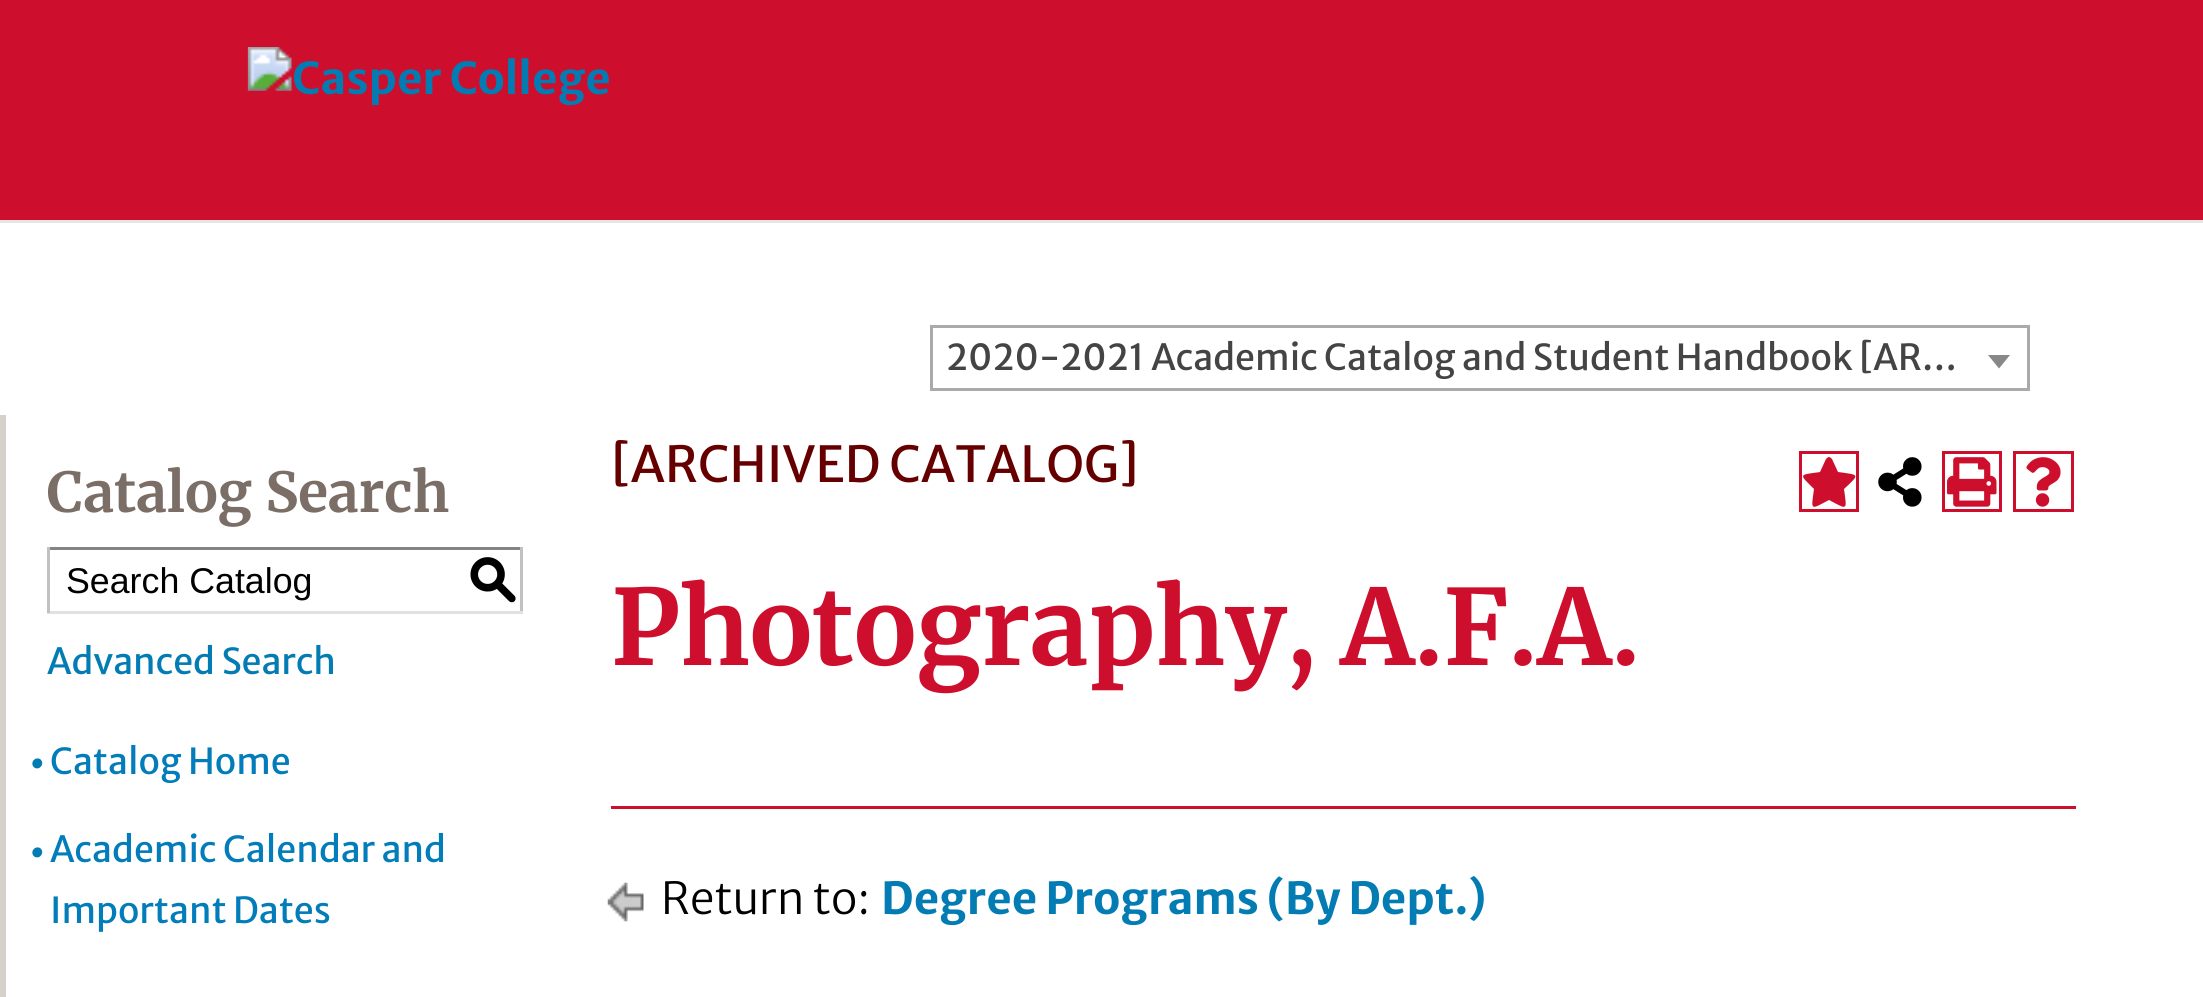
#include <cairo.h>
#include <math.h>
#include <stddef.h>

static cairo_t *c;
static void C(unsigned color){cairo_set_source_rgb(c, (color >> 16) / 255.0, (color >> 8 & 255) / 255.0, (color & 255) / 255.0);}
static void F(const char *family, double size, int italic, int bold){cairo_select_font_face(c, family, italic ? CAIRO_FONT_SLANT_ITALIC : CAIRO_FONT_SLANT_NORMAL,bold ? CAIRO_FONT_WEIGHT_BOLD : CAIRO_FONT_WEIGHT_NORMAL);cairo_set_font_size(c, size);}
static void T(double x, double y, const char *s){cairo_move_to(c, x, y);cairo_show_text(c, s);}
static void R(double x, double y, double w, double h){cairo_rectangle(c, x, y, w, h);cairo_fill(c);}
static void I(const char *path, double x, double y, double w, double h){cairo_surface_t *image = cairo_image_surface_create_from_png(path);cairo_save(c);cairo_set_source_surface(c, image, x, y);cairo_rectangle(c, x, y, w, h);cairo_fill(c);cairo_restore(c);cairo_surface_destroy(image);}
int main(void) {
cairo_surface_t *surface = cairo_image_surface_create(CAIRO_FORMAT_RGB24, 2203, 997);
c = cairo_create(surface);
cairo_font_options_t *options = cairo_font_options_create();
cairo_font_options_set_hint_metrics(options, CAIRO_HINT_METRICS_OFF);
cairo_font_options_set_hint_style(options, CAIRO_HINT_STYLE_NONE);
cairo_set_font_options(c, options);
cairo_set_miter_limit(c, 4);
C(0xffffff);
cairo_paint(c);
C(0xe6e6e6);
cairo_new_path(c);
cairo_move_to(c,0,220);
cairo_line_to(c,0,223);
cairo_line_to(c,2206,223);
cairo_line_to(c,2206,3);
cairo_line_to(c,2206,220);
cairo_close_path(c);
cairo_fill(c);
C(0xce0e2d);
R(0,0,2203,220);
I("1.png",247,47,362,58);
cairo_rectangle(c,931.5,326.5,1097,63);
C(0xaaaaaa);
cairo_set_line_width(c,3);
cairo_stroke(c);
F("Merriweather Sans",35.75,0,0);
C(0x444444);
T(946,370,"2020-2021 Academic Catalog and Student Handbook [AR…");
C(0x888888);
cairo_new_path(c);
cairo_move_to(c,1988,355);
cairo_line_to(c,2010,355);
cairo_line_to(c,1999,368.5);
cairo_close_path(c);
cairo_fill(c);
C(0xd6d1ca);
R(0,415,6,582);
F("Merriweather",55,0,1);
C(0x7a6e66);
T(47,512,"Catalog Search");
C(0x848484);
R(47,547,476,3);
C(0xc1c1c1);
R(520,547,3,66);
C(0xe1e1e1);
R(47,611,476,3);
C(0xc1c1c1);
R(47,547,3,66);
F("Liberation Sans",35.75,0,0);
C(0x000000);
T(66,593,"Search Catalog");
F("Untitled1 Medium",49.5,0,0);
T(468,595,"S");
F("Merriweather Sans",35.75,0,0);
C(0x037cb3);
T(47,674,"Advanced Search");
F("Merriweather Sans",44,0,0);
T(28,779,"•");
F("Merriweather Sans",35.75,0,0);
C(0x037cba);
T(50,774,"Catalog Home");
F("Merriweather Sans",44,0,0);
C(0x037cb3);
T(28,868,"•");
F("Merriweather Sans",35.75,0,0);
C(0x037cba);
T(50,862,"Academic Calendar and");
T(50,923,"Important Dates");
F("Merriweather Sans",49.5,0,0);
C(0x660000);
T(611,482,"[ARCHIVED CATALOG]");
cairo_rectangle(c,1800.5,452.5,57,58);
C(0xce0e2d);
cairo_stroke(c);
cairo_new_path(c);
cairo_move_to(c,1826,459);
cairo_curve_to(c,1827,458,1828,457,1829,457);
cairo_curve_to(c,1830,457,1831,458,1832,459);
cairo_line_to(c,1838,472);
cairo_curve_to(c,1860,475,1860,474,1844,489);
cairo_curve_to(c,1847,511,1848,510,1829,500);
cairo_curve_to(c,1810,510,1811,511,1814,489);
cairo_curve_to(c,1799,474,1798,475,1820,472);
cairo_close_path(c);
cairo_fill(c);
I("2.png",1878,457,44,50);
cairo_rectangle(c,1943.5,452.5,57,58);
cairo_stroke(c);
I("3.png",1947,457,50,50);
cairo_rectangle(c,2014.5,452.5,58,58);
cairo_stroke(c);
I("4.png",2026,457,35,50);
F("Merriweather",104.5,0,1);
T(611,665,"Photography, A.F.A.");
R(611,806,1465,3);
I("5.png",607,882,37,40);
F("Merriweather Sans Light",44,0,0);
C(0x000000);
T(661,914,"Return to:");
F("Merriweather Sans",44,0,1);
C(0x037cb3);
T(881,914,"Degree Programs (By Dept.)");
cairo_surface_write_to_png(surface, "o.png");
cairo_font_options_destroy(options);
cairo_destroy(c);
cairo_surface_destroy(surface);
return 0;
}
